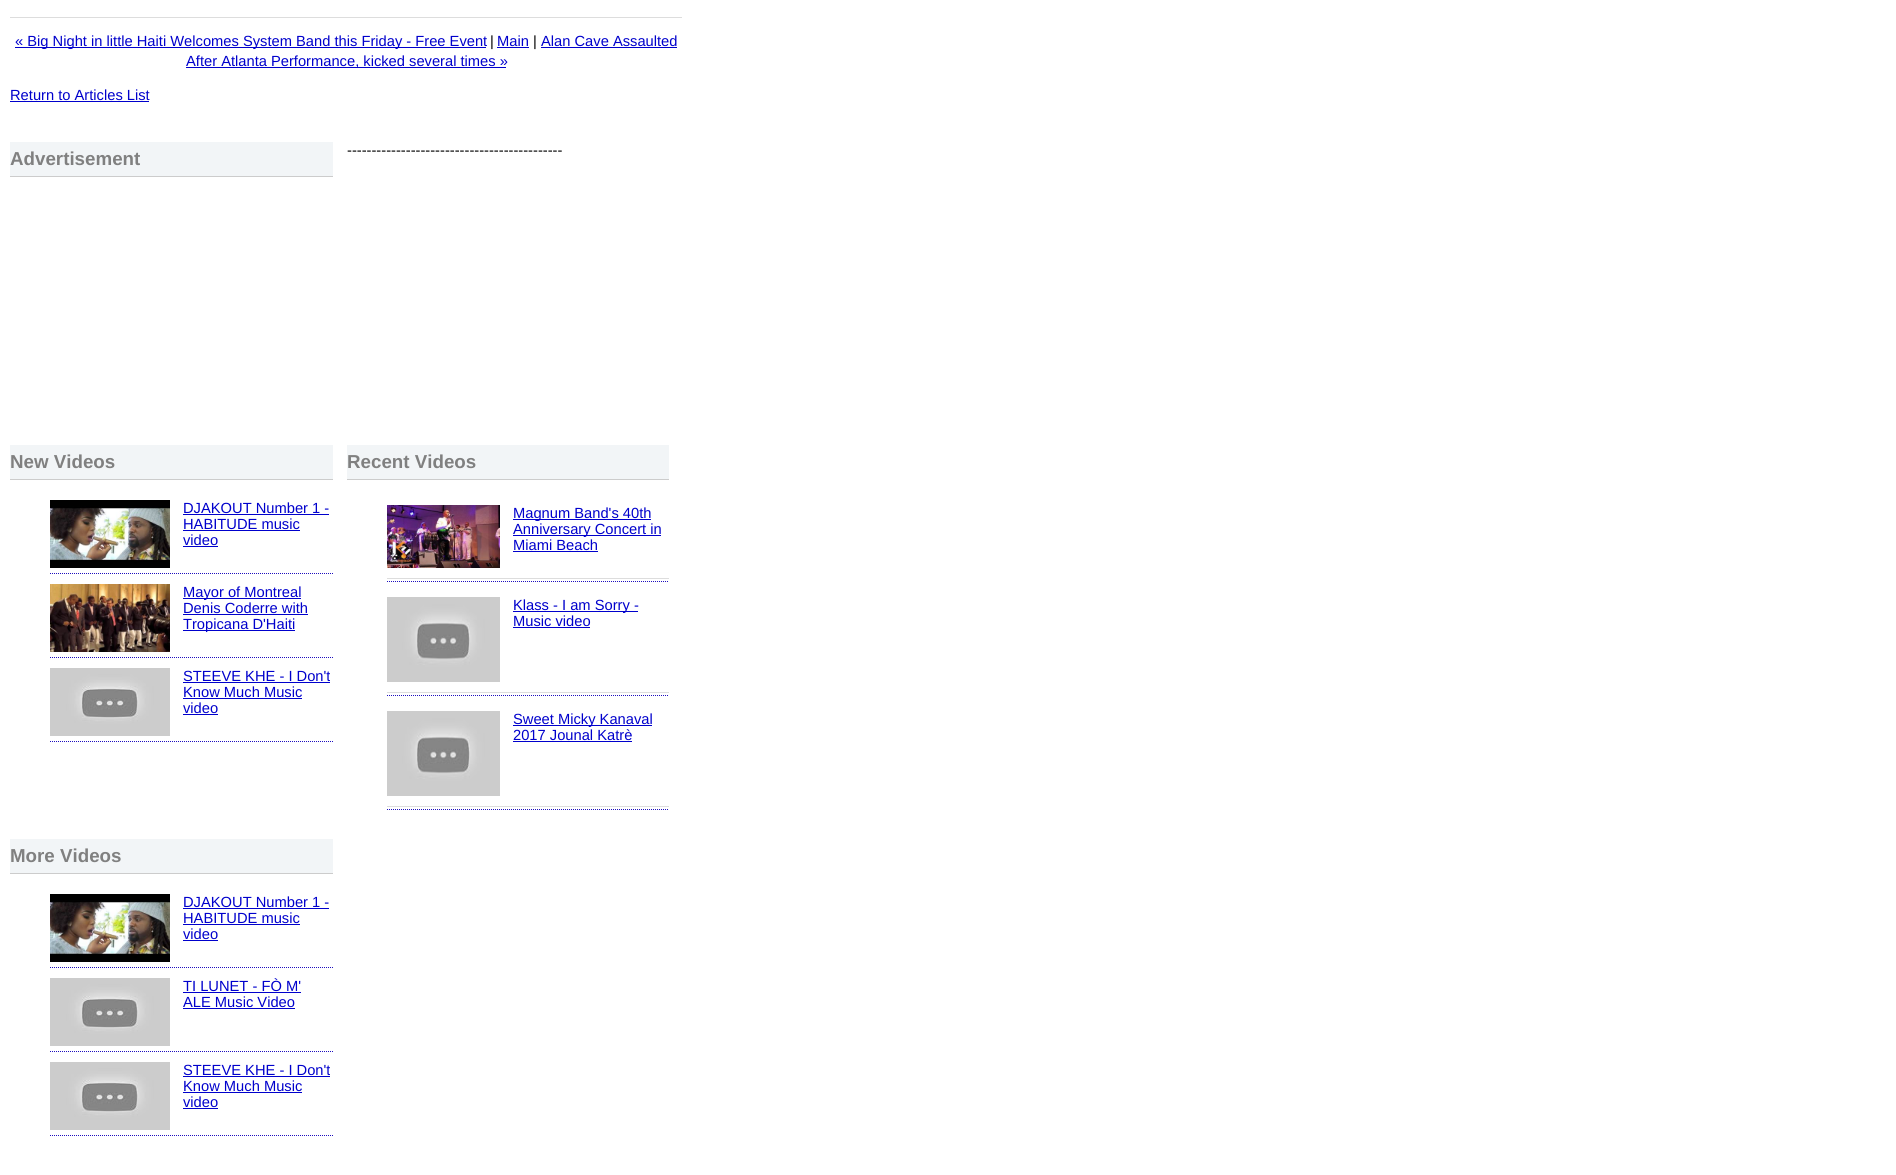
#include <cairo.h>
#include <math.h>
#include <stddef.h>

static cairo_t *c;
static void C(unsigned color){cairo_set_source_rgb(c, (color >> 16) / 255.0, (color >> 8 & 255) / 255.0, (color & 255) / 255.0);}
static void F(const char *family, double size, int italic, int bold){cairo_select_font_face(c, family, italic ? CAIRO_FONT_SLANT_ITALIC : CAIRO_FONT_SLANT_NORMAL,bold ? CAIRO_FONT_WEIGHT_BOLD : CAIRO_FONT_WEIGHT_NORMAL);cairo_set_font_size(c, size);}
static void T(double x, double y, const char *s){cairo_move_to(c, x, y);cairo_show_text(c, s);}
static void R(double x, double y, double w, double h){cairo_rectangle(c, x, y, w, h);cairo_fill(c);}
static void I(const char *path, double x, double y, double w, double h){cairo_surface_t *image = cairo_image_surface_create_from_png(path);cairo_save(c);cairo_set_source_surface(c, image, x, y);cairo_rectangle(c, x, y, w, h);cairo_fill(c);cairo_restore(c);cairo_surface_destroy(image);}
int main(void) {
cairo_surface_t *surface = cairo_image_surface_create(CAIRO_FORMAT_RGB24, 1896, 1175);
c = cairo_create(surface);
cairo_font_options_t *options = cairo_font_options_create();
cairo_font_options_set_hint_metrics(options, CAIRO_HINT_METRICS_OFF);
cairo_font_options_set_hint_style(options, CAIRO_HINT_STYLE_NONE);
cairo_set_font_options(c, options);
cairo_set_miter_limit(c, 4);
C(0xffffff);
cairo_paint(c);
C(0xdddddd);
R(10,17,672,1);
C(0x0000cc);
R(15,47,471,1);
F("Liberation Sans",14.7,0,0);
T(15,46,"« Big Night in little Haiti Welcomes System Band this Friday - Free Event");
C(0x000000);
T(490,46,"|");
C(0x0000cc);
T(497,46,"Main");
R(497,47,32,1);
C(0x000000);
T(533,46,"|");
C(0x0000cc);
T(541,46,"Alan Cave Assaulted");
R(541,47,136,1);
R(186,67,320,1);
T(186,66,"After Atlanta Performance, kicked several times »");
T(10,100,"Return to Articles List");
R(10,101,139,1);
C(0xf2f5f7);
R(10,142,323,34);
C(0xcccccc);
R(10,176,323,1);
F("Liberation Sans",18.75,0,1);
C(0x808080);
T(10,165,"Advertisement");
F("Liberation Sans",14.7,0,0);
C(0x000000);
T(347,155,"--------------------------------------------");
C(0xf2f5f7);
R(10,445,323,34);
C(0xcccccc);
R(10,479,323,1);
F("Liberation Sans",18.75,0,1);
C(0x808080);
T(10,468,"New Videos");
cairo_new_path(c);
cairo_move_to(c,50,573.5);
cairo_line_to(c,333,573.5);
C(0x1e0fbe);
cairo_set_line_width(c,1);
cairo_set_dash(c,(double[]){1,1},2,0);
cairo_stroke(c);
I("1.png",50,500,120,68);
F("Liberation Sans",14.7,0,0);
C(0x0000cc);
T(183,513,"DJAKOUT Number 1 -");
R(183,514,146,1);
T(183,529,"HABITUDE music");
R(183,530,117,1);
T(183,545,"video");
R(183,546,35,1);
cairo_new_path(c);
cairo_move_to(c,50,657.5);
cairo_line_to(c,333,657.5);
C(0x1e0fbe);
cairo_stroke(c);
I("2.png",50,584,120,68);
C(0x0000cc);
R(183,598,118,1);
T(183,597,"Mayor of Montreal");
T(183,613,"Denis Coderre with");
R(183,614,125,1);
R(183,630,112,1);
T(183,629,"Tropicana D'Haiti");
cairo_new_path(c);
cairo_move_to(c,50,741.5);
cairo_line_to(c,333,741.5);
C(0x1e0fbe);
cairo_stroke(c);
I("3.png",50,668,120,68);
C(0x0000cc);
T(183,681,"STEEVE KHE - I Don't");
R(183,682,147,1);
T(183,697,"Know Much Music");
R(183,698,119,1);
T(183,713,"video");
R(183,714,35,1);
C(0xf2f5f7);
R(347,445,322,34);
C(0xcccccc);
R(347,479,322,1);
F("Liberation Sans",18.75,0,1);
C(0x808080);
T(347,468,"Recent Videos");
cairo_new_path(c);
cairo_move_to(c,387,581.5);
cairo_line_to(c,669,581.5);
C(0x1e0fbe);
cairo_stroke(c);
C(0xdddddd);
R(387,578,282,1);
I("4.png",387,505,113,63);
C(0x0000cc);
R(513,519,138,1);
F("Liberation Sans",14.7,0,0);
T(513,518,"Magnum Band's 40th");
R(513,535,148,1);
T(513,534,"Anniversary Concert in");
T(513,550,"Miami Beach");
R(513,551,85,1);
cairo_new_path(c);
cairo_move_to(c,387,695.5);
cairo_line_to(c,669,695.5);
C(0x1e0fbe);
cairo_stroke(c);
C(0xdddddd);
R(387,692,282,1);
I("5.png",387,597,113,85);
C(0x0000cc);
R(513,611,125,1);
T(513,610,"Klass - I am Sorry -");
T(513,626,"Music video");
R(513,627,77,1);
cairo_new_path(c);
cairo_move_to(c,387,809.5);
cairo_line_to(c,669,809.5);
C(0x1e0fbe);
cairo_stroke(c);
C(0xdddddd);
R(387,806,282,1);
I("5.png",387,711,113,85);
C(0x0000cc);
R(513,725,139,1);
T(513,724,"Sweet Micky Kanaval");
T(513,740,"2017 Jounal Katrè");
R(513,741,119,1);
C(0xf2f5f7);
R(10,839,323,34);
C(0xcccccc);
R(10,873,323,1);
F("Liberation Sans",18.75,0,1);
C(0x808080);
T(10,862,"More Videos");
cairo_new_path(c);
cairo_move_to(c,50,967.5);
cairo_line_to(c,333,967.5);
C(0x1e0fbe);
cairo_stroke(c);
I("6.png",50,894,120,68);
F("Liberation Sans",14.7,0,0);
C(0x0000cc);
T(183,907,"DJAKOUT Number 1 -");
R(183,908,146,1);
T(183,923,"HABITUDE music");
R(183,924,117,1);
T(183,939,"video");
R(183,940,35,1);
cairo_new_path(c);
cairo_move_to(c,50,1051.5);
cairo_line_to(c,333,1051.5);
C(0x1e0fbe);
cairo_stroke(c);
I("7.png",50,978,120,68);
C(0x0000cc);
T(183,991,"TI LUNET - FÒ M'");
R(183,992,118,1);
T(183,1007,"ALE Music Video");
R(183,1008,112,1);
cairo_new_path(c);
cairo_move_to(c,50,1135.5);
cairo_line_to(c,333,1135.5);
C(0x1e0fbe);
cairo_stroke(c);
I("7.png",50,1062,120,68);
C(0x0000cc);
T(183,1075,"STEEVE KHE - I Don't");
R(183,1076,147,1);
T(183,1091,"Know Much Music");
R(183,1092,119,1);
T(183,1107,"video");
R(183,1108,35,1);
cairo_surface_write_to_png(surface, "o.png");
cairo_font_options_destroy(options);
cairo_destroy(c);
cairo_surface_destroy(surface);
return 0;
}
